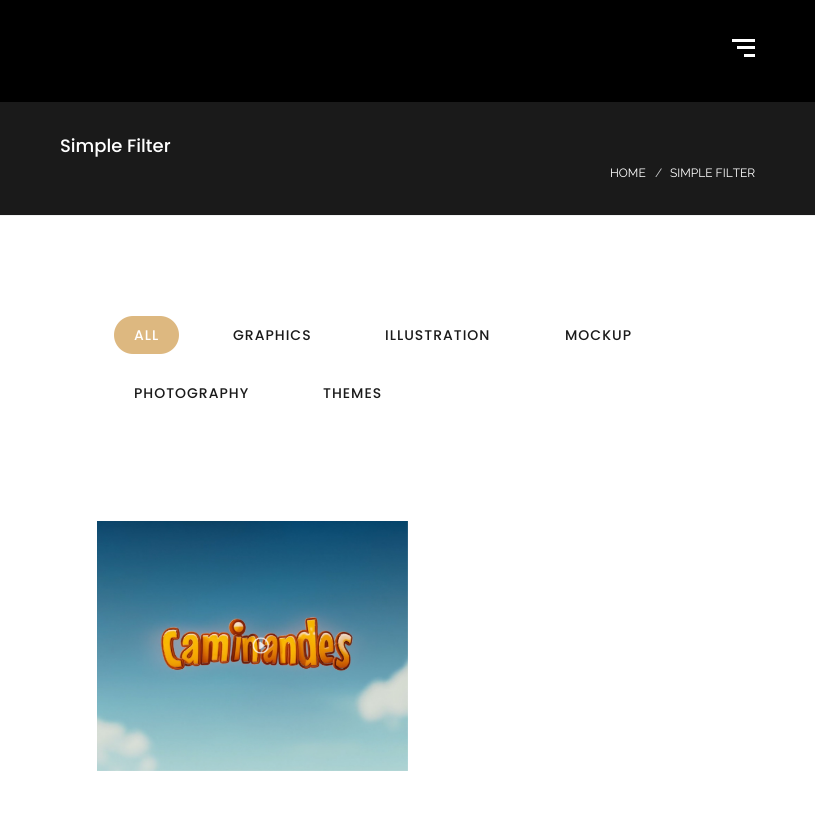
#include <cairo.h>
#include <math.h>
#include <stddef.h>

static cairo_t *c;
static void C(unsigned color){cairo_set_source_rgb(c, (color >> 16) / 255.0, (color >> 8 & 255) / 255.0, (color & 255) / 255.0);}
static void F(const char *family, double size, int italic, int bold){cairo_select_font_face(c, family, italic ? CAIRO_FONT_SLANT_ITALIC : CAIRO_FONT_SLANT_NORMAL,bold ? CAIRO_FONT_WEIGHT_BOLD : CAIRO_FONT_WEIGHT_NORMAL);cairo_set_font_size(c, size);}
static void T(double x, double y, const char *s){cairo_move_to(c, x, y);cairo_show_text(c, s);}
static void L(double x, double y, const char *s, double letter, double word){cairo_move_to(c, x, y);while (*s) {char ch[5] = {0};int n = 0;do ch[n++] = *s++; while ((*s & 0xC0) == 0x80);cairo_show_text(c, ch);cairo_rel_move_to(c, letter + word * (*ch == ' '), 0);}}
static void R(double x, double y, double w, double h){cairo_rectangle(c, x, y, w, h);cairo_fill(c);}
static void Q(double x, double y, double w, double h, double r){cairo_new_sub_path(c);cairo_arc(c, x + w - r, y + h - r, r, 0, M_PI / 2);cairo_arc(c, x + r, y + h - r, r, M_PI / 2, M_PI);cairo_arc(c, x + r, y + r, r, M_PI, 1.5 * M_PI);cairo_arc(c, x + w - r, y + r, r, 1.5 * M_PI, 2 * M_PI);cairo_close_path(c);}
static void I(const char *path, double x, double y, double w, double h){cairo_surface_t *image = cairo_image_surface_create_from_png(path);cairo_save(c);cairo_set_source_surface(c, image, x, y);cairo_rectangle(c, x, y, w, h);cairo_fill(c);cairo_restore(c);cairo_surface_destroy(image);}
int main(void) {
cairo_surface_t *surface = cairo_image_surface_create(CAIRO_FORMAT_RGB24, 815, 817);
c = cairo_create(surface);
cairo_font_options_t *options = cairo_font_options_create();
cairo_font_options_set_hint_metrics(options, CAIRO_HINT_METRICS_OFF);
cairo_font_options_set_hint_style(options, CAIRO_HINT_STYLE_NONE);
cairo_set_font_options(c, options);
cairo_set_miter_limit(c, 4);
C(0xffffff);
cairo_paint(c);
C(0x000000);
R(0,0,815,102);
C(0xffffff);
R(737,46,18,3);
R(732,39,23,3);
R(744,54,11,3);
C(0x1a1a1a);
R(0,102,815,113);
C(0xf1f2f2);
R(0,215,815,1);
F("Poppins Medium",18,0,0);
C(0xffffff);
T(60,152,"Simple Filter");
F("Raleway",12,0,0);
T(610,177,"HOME");
C(0xd1d3d4);
T(655,177,"/");
C(0xffffff);
T(670,177,"SIMPLE FILTER");
C(0xddb880);
Q(114,316,65,38,19);
cairo_fill(c);
F("Poppins Medium",14,0,0);
C(0xffffff);
L(134,340,"ALL",1,0);
C(0x1a1a1a);
L(233,340,"GRAPHICS",1,0);
L(385,340,"ILLUSTRATION",1,0);
L(565,340,"MOCKUP",1,0);
L(134,398,"PHOTOGRAPHY",1,0);
L(323,398,"THEMES",1,0);
I("1.png",97,521,311,250);
cairo_surface_write_to_png(surface, "o.png");
cairo_font_options_destroy(options);
cairo_destroy(c);
cairo_surface_destroy(surface);
return 0;
}
